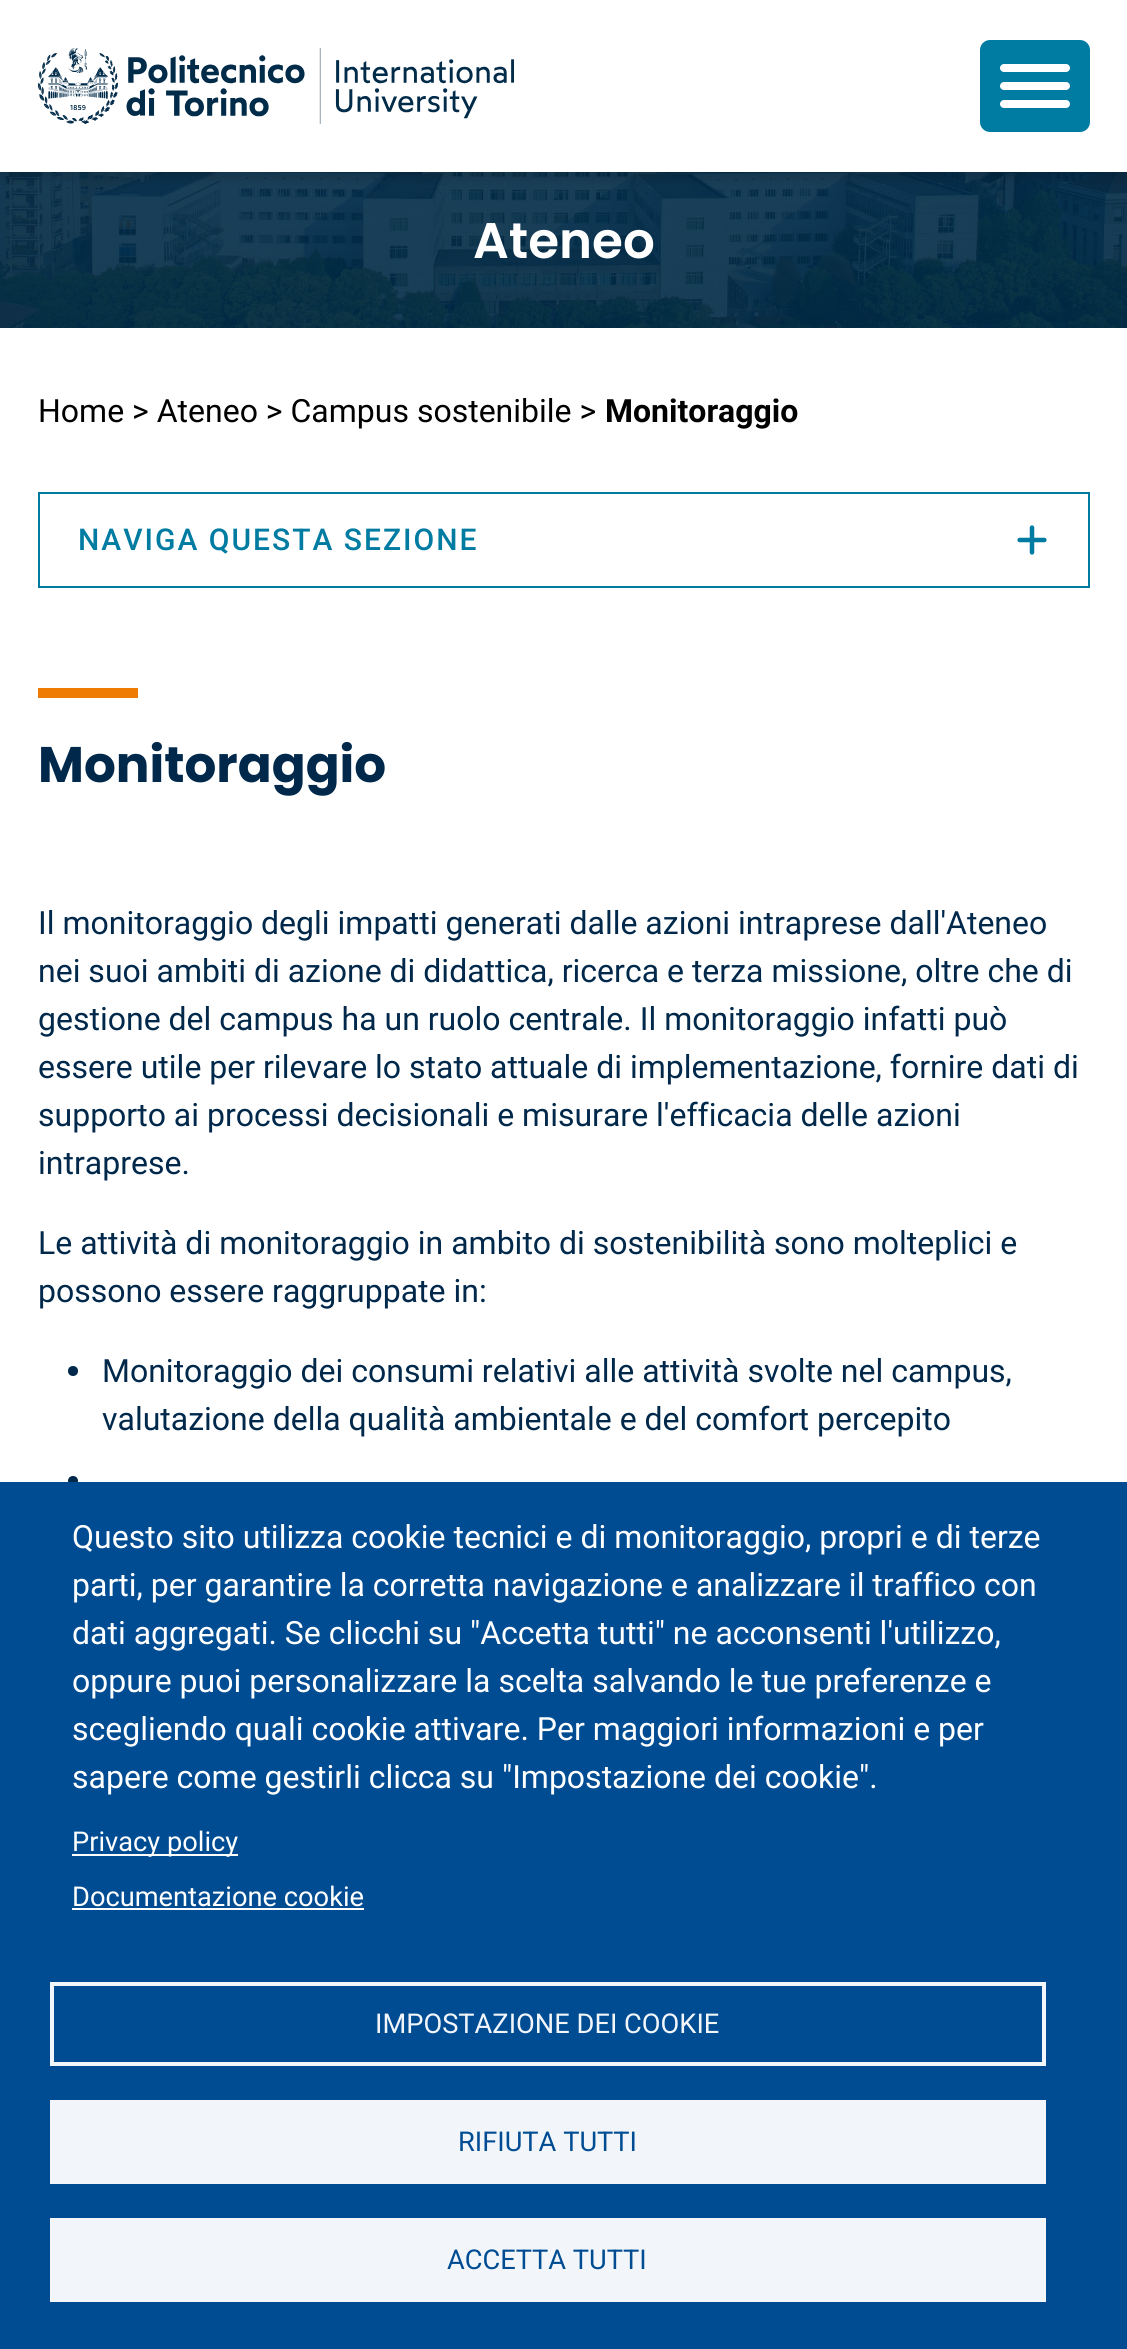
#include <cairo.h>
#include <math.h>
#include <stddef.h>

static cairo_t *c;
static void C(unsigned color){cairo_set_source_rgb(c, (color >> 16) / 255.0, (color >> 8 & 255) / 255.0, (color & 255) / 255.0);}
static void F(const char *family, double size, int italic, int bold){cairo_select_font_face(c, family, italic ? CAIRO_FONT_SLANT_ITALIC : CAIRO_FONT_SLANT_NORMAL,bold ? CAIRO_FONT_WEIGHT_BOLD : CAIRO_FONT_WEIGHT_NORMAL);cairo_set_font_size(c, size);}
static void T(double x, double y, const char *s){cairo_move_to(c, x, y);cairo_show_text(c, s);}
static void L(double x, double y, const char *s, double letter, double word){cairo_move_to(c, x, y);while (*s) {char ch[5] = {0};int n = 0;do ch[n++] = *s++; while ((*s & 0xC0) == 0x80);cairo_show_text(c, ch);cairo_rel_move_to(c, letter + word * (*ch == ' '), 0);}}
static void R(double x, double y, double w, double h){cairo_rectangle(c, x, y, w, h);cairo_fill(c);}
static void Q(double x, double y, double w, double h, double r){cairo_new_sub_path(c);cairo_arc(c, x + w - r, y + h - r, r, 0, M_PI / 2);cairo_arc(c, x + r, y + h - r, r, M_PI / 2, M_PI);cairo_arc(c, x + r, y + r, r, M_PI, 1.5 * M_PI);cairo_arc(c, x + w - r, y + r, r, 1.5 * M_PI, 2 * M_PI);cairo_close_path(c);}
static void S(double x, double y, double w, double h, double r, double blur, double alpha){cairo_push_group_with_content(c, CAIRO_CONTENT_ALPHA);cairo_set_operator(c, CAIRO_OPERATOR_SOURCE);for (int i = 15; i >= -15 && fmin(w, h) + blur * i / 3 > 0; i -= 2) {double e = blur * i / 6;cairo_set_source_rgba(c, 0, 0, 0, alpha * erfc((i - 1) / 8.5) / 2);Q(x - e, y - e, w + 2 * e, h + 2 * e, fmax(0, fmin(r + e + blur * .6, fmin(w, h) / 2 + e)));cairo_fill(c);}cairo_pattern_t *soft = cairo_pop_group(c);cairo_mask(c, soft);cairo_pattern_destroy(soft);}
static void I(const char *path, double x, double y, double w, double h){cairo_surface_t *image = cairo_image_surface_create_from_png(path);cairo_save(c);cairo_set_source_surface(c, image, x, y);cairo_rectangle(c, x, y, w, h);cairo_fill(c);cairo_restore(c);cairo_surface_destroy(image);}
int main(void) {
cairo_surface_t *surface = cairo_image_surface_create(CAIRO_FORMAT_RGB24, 1127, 2349);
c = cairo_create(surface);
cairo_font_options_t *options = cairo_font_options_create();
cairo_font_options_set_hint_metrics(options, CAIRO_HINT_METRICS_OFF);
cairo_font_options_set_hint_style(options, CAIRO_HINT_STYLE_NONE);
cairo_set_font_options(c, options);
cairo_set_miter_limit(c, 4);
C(0xffffff);
cairo_paint(c);
I("2.png",0,172,1127,156);
cairo_save(c);
cairo_rectangle(c,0,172,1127,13);
cairo_clip(c);
C(0x000000);
S(0,6,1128,172,0,6,.16);
cairo_restore(c);
I("1.png",38,48,476,76);
C(0x007ba1);
Q(980,40,110,92,10);
cairo_fill(c);
C(0xffffff);
Q(1000,64,70,8,4);
cairo_fill(c);
Q(1000,82,70,8,4);
cairo_fill(c);
Q(1000,100,70,8,4);
cairo_fill(c);
F("Poppins SemiBold",50,0,0);
T(473,258,"Ateneo");
F("Roboto",32,0,0);
C(0x000000);
T(38,422,"Home > Ateneo > Campus sostenibile >");
F("Roboto",32,0,1);
T(605,422,"Monitoraggio");
cairo_rectangle(c,39,493,1050,94);
C(0x007ba1);
cairo_stroke(c);
F("Roboto Medium",30,0,0);
L(78,550,"NAVIGA QUESTA SEZIONE",2,0);
I("3.png",1017,525,30,30);
C(0xef7b02);
R(38,688,100,10);
F("Poppins",50,0,1);
C(0x00284b);
T(38,782,"Monitoraggio");
F("Roboto",32,0,0);
T(38,934,"Il monitoraggio degli impatti generati dalle azioni intraprese dall'Ateneo");
T(38,982,"nei suoi ambiti di azione di didattica, ricerca e terza missione, oltre che di");
T(38,1030,"gestione del campus ha un ruolo centrale. Il monitoraggio infatti può");
T(38,1078,"essere utile per rilevare lo stato attuale di implementazione, fornire dati di");
T(38,1126,"supporto ai processi decisionali e misurare l'efficacia delle azioni");
T(38,1174,"intraprese.");
T(38,1254,"Le attività di monitoraggio in ambito di sostenibilità sono molteplici e");
T(38,1302,"possono essere raggruppate in:");
cairo_new_path(c);
cairo_arc(c,73,1371,5,0,2 * M_PI);
cairo_fill(c);
T(102,1382,"Monitoraggio dei consumi relativi alle attività svolte nel campus,");
T(102,1430,"valutazione della qualità ambientale e del comfort percepito");
cairo_new_path(c);
cairo_arc(c,73,1481,5,0,2 * M_PI);
cairo_fill(c);
C(0x004c93);
R(0,1482,1127,867);
C(0xffffff);
T(72,1548,"Questo sito utilizza cookie tecnici e di monitoraggio, propri e di terze");
T(72,1596,"parti, per garantire la corretta navigazione e analizzare il traffico con");
T(72,1644,"dati aggregati. Se clicchi su \"Accetta tutti\" ne acconsenti l'utilizzo,");
T(72,1692,"oppure puoi personalizzare la scelta salvando le tue preferenze e");
T(72,1740,"scegliendo quali cookie attivare. Per maggiori informazioni e per");
T(72,1788,"sapere come gestirli clicca su \"Impostazione dei cookie\".");
R(72,1854,166,2);
F("Roboto",27.25,0,0);
T(72,1851,"Privacy policy");
T(72,1906,"Documentazione cookie");
R(72,1908,292,2);
cairo_rectangle(c,52,1984,992,80);
C(0xf2f6fa);
cairo_set_line_width(c,4);
cairo_stroke(c);
T(375,2033,"IMPOSTAZIONE DEI COOKIE");
R(50,2100,996,84);
C(0x004c93);
T(458,2151,"RIFIUTA TUTTI");
C(0xf2f6fa);
R(50,2218,996,84);
C(0x004c93);
T(447,2269,"ACCETTA TUTTI");
cairo_surface_write_to_png(surface, "o.png");
cairo_font_options_destroy(options);
cairo_destroy(c);
cairo_surface_destroy(surface);
return 0;
}
